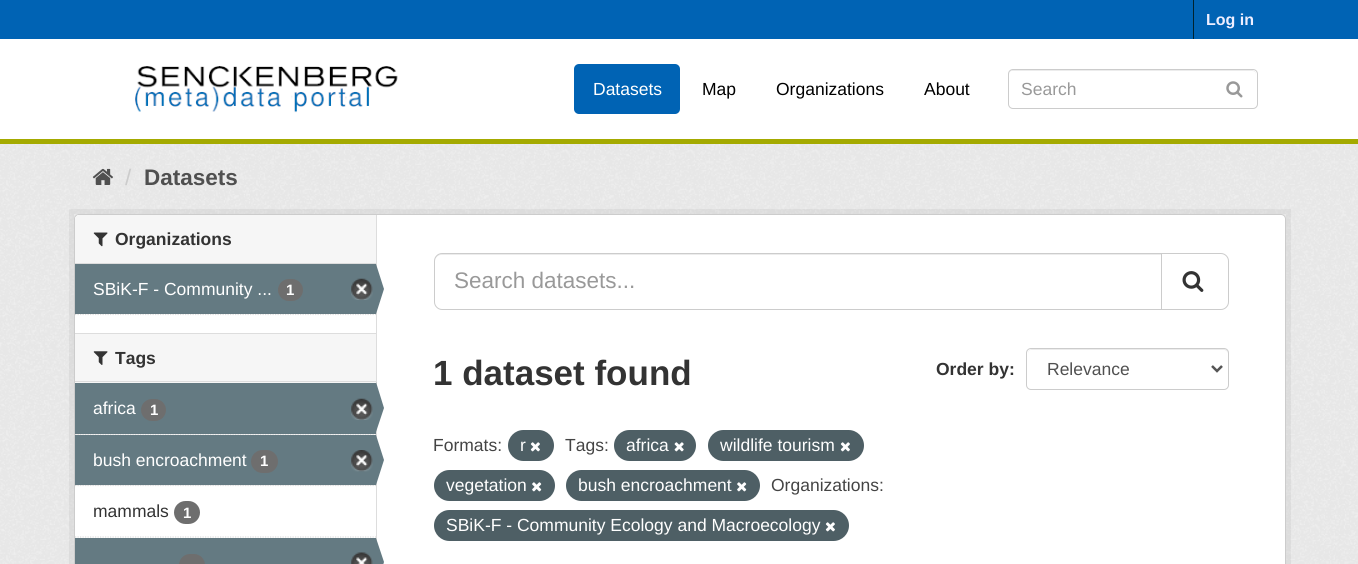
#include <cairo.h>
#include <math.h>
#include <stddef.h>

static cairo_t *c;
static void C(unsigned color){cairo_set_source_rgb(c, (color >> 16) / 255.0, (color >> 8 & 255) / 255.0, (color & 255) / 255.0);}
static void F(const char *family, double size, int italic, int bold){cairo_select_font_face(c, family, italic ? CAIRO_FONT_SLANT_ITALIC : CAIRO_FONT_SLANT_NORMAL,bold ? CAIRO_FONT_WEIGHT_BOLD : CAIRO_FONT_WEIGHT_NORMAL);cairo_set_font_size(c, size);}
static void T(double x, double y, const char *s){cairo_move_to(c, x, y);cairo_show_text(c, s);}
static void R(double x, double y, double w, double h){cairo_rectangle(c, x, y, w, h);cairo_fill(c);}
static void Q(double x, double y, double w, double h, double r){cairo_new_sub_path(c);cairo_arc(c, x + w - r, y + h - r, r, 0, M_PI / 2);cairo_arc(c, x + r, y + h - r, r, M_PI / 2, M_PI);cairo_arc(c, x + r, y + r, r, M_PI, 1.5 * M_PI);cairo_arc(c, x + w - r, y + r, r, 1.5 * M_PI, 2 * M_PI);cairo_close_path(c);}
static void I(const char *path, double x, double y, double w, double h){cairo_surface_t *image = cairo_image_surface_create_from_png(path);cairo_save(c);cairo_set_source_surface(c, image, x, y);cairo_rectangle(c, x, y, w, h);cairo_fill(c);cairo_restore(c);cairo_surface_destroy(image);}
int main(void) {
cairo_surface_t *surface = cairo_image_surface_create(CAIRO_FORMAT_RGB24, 1358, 564);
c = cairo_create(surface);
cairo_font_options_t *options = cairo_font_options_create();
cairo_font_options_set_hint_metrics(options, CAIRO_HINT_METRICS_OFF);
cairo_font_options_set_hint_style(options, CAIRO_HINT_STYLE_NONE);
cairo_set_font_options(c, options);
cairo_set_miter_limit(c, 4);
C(0xffffff);
cairo_paint(c);
C(0x0063b4);
R(0,0,1358,39);
C(0x00232e);
R(1193,0,1,39);
F("Liberation Sans",16,0,1);
C(0xeeeeff);
T(1206,25,"Log in");
C(0xa4aa00);
R(0,139,1358,5);
I("1.png",135,66,263,47);
C(0x0063b4);
Q(574,64,106,50,5);
cairo_fill(c);
F("Liberation Sans",17.5,0,0);
C(0xffffff);
T(593,95,"Datasets");
C(0x000000);
T(702,95,"Map");
T(776,95,"Organizations");
T(924,95,"About");
C(0xececec);
cairo_new_path(c);
cairo_move_to(c,1012,71);
cairo_line_to(c,1252,71);
cairo_curve_to(c,1255,71,1256,73,1256,75);
cairo_line_to(c,1256,74);
cairo_curve_to(c,1256,72,1254,70,1252,70);
cairo_line_to(c,1013,70);
cairo_curve_to(c,1011,70,1009,72,1009,74);
cairo_line_to(c,1009,75);
cairo_curve_to(c,1009,73,1010,71,1012,71);
cairo_close_path(c);
cairo_fill(c);
Q(1008.5,69.5,249,39,4.5);
C(0xcccccc);
cairo_set_line_width(c,1);
cairo_stroke(c);
C(0x999999);
T(1021,95,"Search");
I("2.png",1226,81,17,17);
C(0xeeeeee);
R(0,144,1358,420);
I("3.png",0,144,1358,420);
I("4.png",92,168,21,17);
F("Liberation Sans",22.5,0,0);
C(0xcccccc);
T(125,185,"/");
F("Liberation Sans",22.5,0,1);
C(0x505050);
T(144,185,"Datasets");
cairo_rectangle(c,71.5,211.5,1217,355);
cairo_set_source_rgba(c,0,0,0,0.05);
cairo_set_line_width(c,5);
cairo_stroke(c);
C(0xffffff);
Q(74.5,214.5,1211,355,4.5);
cairo_fill_preserve(c);
C(0xcccccc);
cairo_set_line_width(c,1);
cairo_stroke(c);
C(0xf6f6f6);
cairo_new_path(c);
cairo_move_to(c,79,215);
cairo_line_to(c,376,215);
cairo_line_to(c,376,264);
cairo_line_to(c,75,264);
cairo_line_to(c,75,219);
cairo_curve_to(c,75,217,77,215,79,215);
cairo_close_path(c);
cairo_fill(c);
C(0xdddddd);
R(75,263,301,1);
I("5.png",93,232,15,15);
F("Liberation Sans",17.5,0,1);
C(0x333333);
T(115,245,"Organizations");
cairo_new_path(c);
cairo_move_to(c,75,314.5);
cairo_line_to(c,376,314.5);
C(0xdddddd);
cairo_set_line_width(c,1.2);
cairo_set_dash(c,(double[]){1.25,1.25},2,0);
cairo_stroke(c);
C(0x647a82);
R(75,264,301,50);
F("Liberation Sans",17.5,0,0);
C(0xffffff);
T(93,295,"SBiK-F - Community ...");
C(0x6e6e6e);
Q(278,279,25,22,11);
cairo_fill(c);
F("Liberation Sans",15,0,1);
C(0xffffff);
T(286,295,"1");
I("6.png",351,278,22,22);
C(0xdddddd);
R(376,215,1,326);
C(0x647a82);
cairo_new_path(c);
cairo_move_to(c,376,314);
cairo_line_to(c,376,264);
cairo_line_to(c,384,289);
cairo_close_path(c);
cairo_fill(c);
C(0xf6f6f6);
R(75,334,301,49);
C(0xdddddd);
R(75,333,301,1);
R(75,381,301,1);
I("7.png",93,351,15,14);
F("Liberation Sans",17.5,0,1);
C(0x333333);
T(115,364,"Tags");
C(0xf6f6f6);
R(76,434,299,1);
cairo_new_path(c);
cairo_move_to(c,75,434.5);
cairo_line_to(c,376,434.5);
C(0xdddddd);
cairo_stroke(c);
C(0x647a82);
R(75,383,301,51);
F("Liberation Sans",17.5,0,0);
C(0xffffff);
T(93,414,"africa");
C(0x6e6e6e);
Q(141,399,25,22,11);
cairo_fill(c);
F("Liberation Sans",15,0,1);
C(0xffffff);
T(150,415,"1");
I("8.png",351,398,22,22);
C(0x647a82);
cairo_new_path(c);
cairo_move_to(c,376,432);
cairo_line_to(c,376,382);
cairo_line_to(c,384,408);
cairo_close_path(c);
cairo_fill(c);
C(0xf6f6f6);
R(76,485,299,1);
cairo_new_path(c);
cairo_move_to(c,75,485.5);
cairo_line_to(c,376,485.5);
C(0xdddddd);
cairo_stroke(c);
C(0x647a82);
R(75,435,301,50);
F("Liberation Sans",17.5,0,0);
C(0xffffff);
T(93,466,"bush encroachment");
C(0x6e6e6e);
Q(251,450,27,23,11.5);
cairo_fill(c);
F("Liberation Sans",15,0,1);
C(0xffffff);
T(260,466,"1");
I("9.png",351,450,22,22);
C(0x647a82);
cairo_new_path(c);
cairo_move_to(c,376,485);
cairo_line_to(c,376,435);
cairo_line_to(c,384,460);
cairo_close_path(c);
cairo_fill(c);
cairo_new_path(c);
cairo_move_to(c,75,537);
cairo_line_to(c,376,537);
C(0xdddddd);
cairo_stroke(c);
F("Liberation Sans",17.5,0,0);
C(0x333333);
T(93,517,"mammals");
C(0x6e6e6e);
Q(174,501,26,23,11.5);
cairo_fill(c);
F("Liberation Sans",15,0,1);
C(0xffffff);
T(183,518,"1");
C(0x647a82);
R(75,538,301,26);
C(0x6e6e6e);
Q(179,554,26,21,11);
cairo_fill(c);
I("10.png",351,552,22,12);
C(0x647a82);
cairo_new_path(c);
cairo_move_to(c,376,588);
cairo_line_to(c,376,538);
cairo_line_to(c,384,562);
cairo_close_path(c);
cairo_fill(c);
C(0xececec);
cairo_new_path(c);
cairo_move_to(c,441,255);
cairo_line_to(c,1161,255);
cairo_line_to(c,1161,254);
cairo_line_to(c,441,254);
cairo_curve_to(c,437,254,435,257,435,261);
cairo_curve_to(c,435,258,438,255,441,255);
cairo_close_path(c);
cairo_fill(c);
cairo_new_path(c);
cairo_move_to(c,442,253.5);
cairo_line_to(c,1162.5,253.5);
cairo_line_to(c,1162.5,309.5);
cairo_line_to(c,442,309.5);
cairo_curve_to(c,438,309.5,434.5,306,434.5,302);
cairo_line_to(c,434.5,261);
cairo_curve_to(c,434.5,257,438,253.5,442,253.5);
cairo_close_path(c);
C(0xcccccc);
cairo_set_line_width(c,1);
cairo_set_dash(c,NULL,0,0);
cairo_stroke(c);
F("Liberation Sans",22.5,0,0);
C(0x999999);
T(454,288,"Search datasets...");
C(0xffffff);
cairo_new_path(c);
cairo_move_to(c,1161.5,253.5);
cairo_line_to(c,1221,253.5);
cairo_curve_to(c,1225,253.5,1228.5,257,1228.5,261);
cairo_line_to(c,1228.5,302);
cairo_curve_to(c,1228.5,306,1225,309.5,1221,309.5);
cairo_line_to(c,1161.5,309.5);
cairo_close_path(c);
cairo_fill_preserve(c);
C(0xcccccc);
cairo_stroke(c);
I("11.png",1182,271,22,21);
F("Liberation Sans",35,0,1);
C(0x333333);
T(433,385,"1 dataset found");
F("Liberation Sans",17.5,0,1);
T(936,375,"Order by:");
C(0xececec);
cairo_new_path(c);
cairo_move_to(c,1031,350);
cairo_line_to(c,1224,350);
cairo_curve_to(c,1226,350,1228,352,1228,354);
cairo_line_to(c,1228,353);
cairo_curve_to(c,1228,351,1226,349,1224,349);
cairo_line_to(c,1032,349);
cairo_curve_to(c,1030,349,1028,351,1028,353);
cairo_line_to(c,1028,354);
cairo_curve_to(c,1028,352,1029,350,1031,350);
cairo_close_path(c);
cairo_fill(c);
Q(1026.5,348.5,202,41,4.5);
C(0xcccccc);
cairo_stroke(c);
cairo_new_path(c);
cairo_move_to(c,1212,366);
cairo_line_to(c,1217,371);
cairo_line_to(c,1222,366);
C(0x555555);
cairo_set_line_width(c,2.5);
cairo_stroke(c);
F("Liberation Sans",17.5,0,0);
C(0x505050);
T(1047,375,"Relevance");
C(0x444444);
T(433,451,"Formats:");
C(0x4e5f65);
Q(508,430,46,31,15.5);
cairo_fill(c);
C(0xffffff);
T(520,451,"r");
I("12.png",530,442,10,10);
C(0x444444);
T(565,451,"Tags:");
C(0x4e5f65);
Q(614,430,82,31,15.5);
cairo_fill(c);
C(0xffffff);
T(626,451,"africa");
I("13.png",674,442,10,10);
C(0x4e5f65);
Q(708,430,156,31,15.5);
cairo_fill(c);
C(0xffffff);
T(720,451,"wildlife tourism");
I("12.png",840,442,10,10);
C(0x4e5f65);
Q(434,470,121,31,15.5);
cairo_fill(c);
C(0xffffff);
T(446,491,"vegetation");
I("14.png",532,482,10,10);
C(0x4e5f65);
Q(566,470,194,31,15.5);
cairo_fill(c);
C(0xffffff);
T(578,491,"bush encroachment");
I("14.png",737,482,10,10);
C(0x444444);
T(771,491,"Organizations:");
C(0x4e5f65);
Q(434,510,415,31,15.5);
cairo_fill(c);
C(0xffffff);
T(446,531,"SBiK-F - Community Ecology and Macroecology");
I("12.png",825,522,10,10);
cairo_surface_write_to_png(surface, "o.png");
cairo_font_options_destroy(options);
cairo_destroy(c);
cairo_surface_destroy(surface);
return 0;
}
